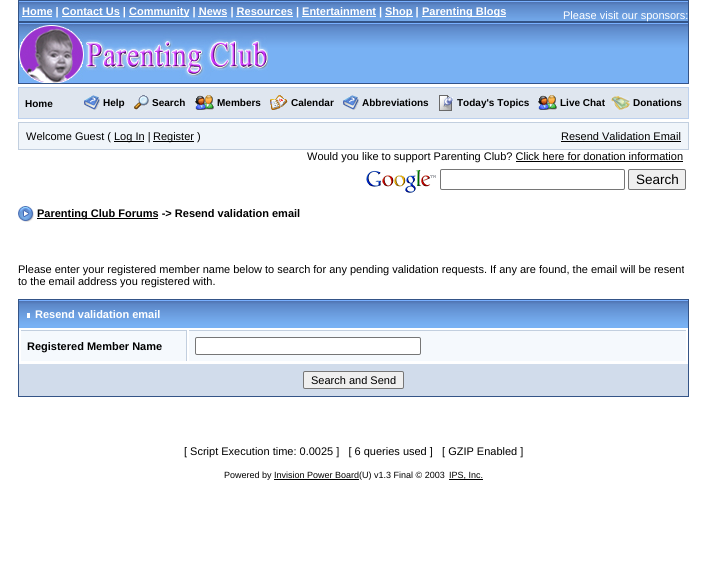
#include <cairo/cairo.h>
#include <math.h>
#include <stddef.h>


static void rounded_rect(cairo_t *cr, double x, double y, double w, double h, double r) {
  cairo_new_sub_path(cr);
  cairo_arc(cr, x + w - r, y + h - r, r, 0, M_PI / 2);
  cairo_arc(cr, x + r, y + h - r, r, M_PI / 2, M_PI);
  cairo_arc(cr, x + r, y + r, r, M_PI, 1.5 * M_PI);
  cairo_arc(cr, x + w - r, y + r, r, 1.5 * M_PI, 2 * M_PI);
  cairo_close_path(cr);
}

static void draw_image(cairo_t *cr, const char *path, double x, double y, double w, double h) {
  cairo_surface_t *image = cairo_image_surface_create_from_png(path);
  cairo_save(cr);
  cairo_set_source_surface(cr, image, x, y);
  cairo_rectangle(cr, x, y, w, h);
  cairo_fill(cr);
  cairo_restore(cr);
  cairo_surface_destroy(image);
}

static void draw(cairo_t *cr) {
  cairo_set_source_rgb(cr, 1, 1, 1);
  cairo_paint(cr);
  draw_image(cr, "images/1.png", 19, 1, 669, 20);
  cairo_rectangle(cr, 18.5, 0.5, 670, 21);
  cairo_set_source_rgb(cr, 52 / 255.0, 84 / 255.0, 135 / 255.0);
  cairo_set_line_width(cr, 1);
  cairo_stroke(cr);
  cairo_set_source_rgb(cr, 1, 1, 1);
  cairo_rectangle(cr, 22, 16, 30, 1);
  cairo_fill(cr);
  cairo_rectangle(cr, 62, 16, 58, 1);
  cairo_fill(cr);
  cairo_rectangle(cr, 129, 16, 60, 1);
  cairo_fill(cr);
  cairo_rectangle(cr, 198, 16, 29, 1);
  cairo_fill(cr);
  cairo_rectangle(cr, 236, 16, 57, 1);
  cairo_fill(cr);
  cairo_rectangle(cr, 302, 16, 74, 1);
  cairo_fill(cr);
  cairo_rectangle(cr, 385, 16, 28, 1);
  cairo_fill(cr);
  cairo_rectangle(cr, 422, 16, 84, 1);
  cairo_fill(cr);
  draw_image(cr, "images/2.png", 19, 23, 669, 60);
  cairo_rectangle(cr, 18.5, 22.5, 670, 61);
  cairo_set_source_rgb(cr, 52 / 255.0, 84 / 255.0, 135 / 255.0);
  cairo_stroke(cr);
  draw_image(cr, "images/3.png", 19, 24, 249, 59);
  cairo_set_source_rgb(cr, 223 / 255.0, 230 / 255.0, 239 / 255.0);
  cairo_rectangle(cr, 18.5, 87.5, 670, 31);
  cairo_fill_preserve(cr);
  cairo_set_source_rgb(cr, 188 / 255.0, 208 / 255.0, 237 / 255.0);
  cairo_stroke(cr);
  draw_image(cr, "images/4.png", 84, 95, 16, 15);
  draw_image(cr, "images/5.png", 134, 95, 15, 15);
  draw_image(cr, "images/6.png", 195, 95, 19, 15);
  draw_image(cr, "images/7.png", 270, 95, 18, 15);
  draw_image(cr, "images/4.png", 343, 95, 16, 15);
  draw_image(cr, "images/8.png", 439, 95, 14, 16);
  draw_image(cr, "images/6.png", 538, 95, 19, 15);
  draw_image(cr, "images/9.png", 611, 96, 19, 14);
  cairo_set_source_rgb(cr, 240 / 255.0, 245 / 255.0, 250 / 255.0);
  cairo_rectangle(cr, 18.5, 122.5, 670, 27);
  cairo_fill_preserve(cr);
  cairo_set_source_rgb(cr, 194 / 255.0, 207 / 255.0, 223 / 255.0);
  cairo_stroke(cr);
  cairo_set_source_rgb(cr, 0, 0, 0);
  cairo_rectangle(cr, 114, 141, 30, 1);
  cairo_fill(cr);
  cairo_rectangle(cr, 153, 141, 41, 1);
  cairo_fill(cr);
  cairo_rectangle(cr, 561, 141, 120, 1);
  cairo_fill(cr);
  cairo_rectangle(cr, 516, 161, 167, 1);
  cairo_fill(cr);
  draw_image(cr, "images/10.png", 366, 170, 70, 23);
  rounded_rect(cr, 440.5, 169.5, 184, 20, 1.5);
  cairo_set_source_rgb(cr, 118 / 255.0, 118 / 255.0, 118 / 255.0);
  cairo_stroke(cr);
  cairo_set_source_rgb(cr, 239 / 255.0, 239 / 255.0, 239 / 255.0);
  rounded_rect(cr, 628.5, 169.5, 57, 20, 1.5);
  cairo_fill_preserve(cr);
  cairo_set_source_rgb(cr, 118 / 255.0, 118 / 255.0, 118 / 255.0);
  cairo_stroke(cr);
  draw_image(cr, "images/11.png", 18, 206, 16, 16);
  cairo_set_source_rgb(cr, 0, 0, 0);
  cairo_rectangle(cr, 37, 218, 121, 1);
  cairo_fill(cr);
  cairo_rectangle(cr, 18.5, 299.5, 670, 97);
  cairo_set_source_rgb(cr, 52 / 255.0, 84 / 255.0, 135 / 255.0);
  cairo_stroke(cr);
  draw_image(cr, "images/12.png", 19, 300, 669, 28);
  cairo_set_source_rgb(cr, 1, 1, 1);
  cairo_rectangle(cr, 27, 313, 3, 5);
  cairo_fill(cr);
  cairo_set_source_rgb(cr, 245 / 255.0, 249 / 255.0, 253 / 255.0);
  cairo_rectangle(cr, 21, 331, 165, 30);
  cairo_fill(cr);
  cairo_set_source_rgb(cr, 194 / 255.0, 207 / 255.0, 223 / 255.0);
  cairo_rectangle(cr, 21, 330, 166, 1);
  cairo_fill(cr);
  cairo_rectangle(cr, 186, 330, 1, 31);
  cairo_fill(cr);
  cairo_set_source_rgb(cr, 245 / 255.0, 249 / 255.0, 253 / 255.0);
  cairo_rectangle(cr, 189, 331, 497, 30);
  cairo_fill(cr);
  cairo_set_source_rgb(cr, 194 / 255.0, 207 / 255.0, 223 / 255.0);
  cairo_rectangle(cr, 189, 330, 497, 1);
  cairo_fill(cr);
  cairo_set_source_rgb(cr, 1, 1, 1);
  rounded_rect(cr, 195.5, 337.5, 225, 17, 1.5);
  cairo_fill_preserve(cr);
  cairo_set_source_rgb(cr, 118 / 255.0, 118 / 255.0, 118 / 255.0);
  cairo_stroke(cr);
  cairo_set_source_rgb(cr, 209 / 255.0, 220 / 255.0, 235 / 255.0);
  cairo_rectangle(cr, 19, 364, 669, 32);
  cairo_fill(cr);
  cairo_set_source_rgb(cr, 239 / 255.0, 239 / 255.0, 239 / 255.0);
  rounded_rect(cr, 303.5, 371.5, 100, 17, 1.5);
  cairo_fill_preserve(cr);
  cairo_set_source_rgb(cr, 118 / 255.0, 118 / 255.0, 118 / 255.0);
  cairo_stroke(cr);
  cairo_set_source_rgb(cr, 0, 0, 0);
  cairo_rectangle(cr, 449, 479, 34, 1);
  cairo_fill(cr);
  cairo_rectangle(cr, 274, 479, 85, 1);
  cairo_fill(cr);
  cairo_select_font_face(cr, "Liberation Sans", CAIRO_FONT_SLANT_NORMAL, CAIRO_FONT_WEIGHT_BOLD);
  cairo_set_font_size(cr, 11);
  cairo_set_source_rgb(cr, 1, 1, 1);
  cairo_move_to(cr, 22, 15);
  cairo_show_text(cr, "Home | Contact Us |");
  cairo_move_to(cr, 129, 15);
  cairo_show_text(cr, "Community | News | Resources | Entertainment |");
  cairo_move_to(cr, 385, 15);
  cairo_show_text(cr, "Shop |");
  cairo_move_to(cr, 422, 15);
  cairo_show_text(cr, "Parenting Blogs");
  cairo_select_font_face(cr, "Liberation Sans", CAIRO_FONT_SLANT_NORMAL, CAIRO_FONT_WEIGHT_NORMAL);
  cairo_move_to(cr, 563, 19);
  cairo_show_text(cr, "Please visit our sponsors:");
  cairo_select_font_face(cr, "Liberation Sans", CAIRO_FONT_SLANT_NORMAL, CAIRO_FONT_WEIGHT_BOLD);
  cairo_set_font_size(cr, 10);
  cairo_set_source_rgb(cr, 0, 0, 0);
  cairo_move_to(cr, 25, 107);
  cairo_show_text(cr, "Home");
  cairo_move_to(cr, 103, 106);
  cairo_show_text(cr, "Help");
  cairo_move_to(cr, 152, 106);
  cairo_show_text(cr, "Search");
  cairo_move_to(cr, 217, 106);
  cairo_show_text(cr, "Members");
  cairo_move_to(cr, 291, 106);
  cairo_show_text(cr, "Calendar");
  cairo_move_to(cr, 362, 106);
  cairo_show_text(cr, "Abbreviations");
  cairo_move_to(cr, 457, 106);
  cairo_show_text(cr, "Today's Topics");
  cairo_move_to(cr, 560, 106);
  cairo_show_text(cr, "Live Chat");
  cairo_move_to(cr, 633, 106);
  cairo_show_text(cr, "Donations");
  cairo_select_font_face(cr, "Liberation Sans", CAIRO_FONT_SLANT_NORMAL, CAIRO_FONT_WEIGHT_NORMAL);
  cairo_set_font_size(cr, 11);
  cairo_move_to(cr, 26, 140);
  cairo_show_text(cr, "Welcome Guest (");
  cairo_move_to(cr, 114, 140);
  cairo_show_text(cr, "Log In |");
  cairo_move_to(cr, 153, 140);
  cairo_show_text(cr, "Register )");
  cairo_move_to(cr, 561, 140);
  cairo_show_text(cr, "Resend Validation Email");
  cairo_move_to(cr, 307, 160);
  cairo_show_text(cr, "Would you like to support Parenting Club? Click here for donation information");
  cairo_set_font_size(cr, 13.5);
  cairo_move_to(cr, 636, 184);
  cairo_show_text(cr, "Search");
  cairo_select_font_face(cr, "Liberation Sans", CAIRO_FONT_SLANT_NORMAL, CAIRO_FONT_WEIGHT_BOLD);
  cairo_set_font_size(cr, 11);
  cairo_move_to(cr, 37, 217);
  cairo_show_text(cr, "Parenting Club Forums -> Resend validation email");
  cairo_select_font_face(cr, "Liberation Sans", CAIRO_FONT_SLANT_NORMAL, CAIRO_FONT_WEIGHT_NORMAL);
  cairo_move_to(cr, 18, 273);
  cairo_show_text(cr, "Please enter your registered member name below to search for any pending validation requests. If any are found, the email will be resent");
  cairo_move_to(cr, 18, 285);
  cairo_show_text(cr, "to the email address you registered with.");
  cairo_select_font_face(cr, "Liberation Sans", CAIRO_FONT_SLANT_NORMAL, CAIRO_FONT_WEIGHT_BOLD);
  cairo_set_source_rgb(cr, 1, 1, 1);
  cairo_move_to(cr, 35, 318);
  cairo_show_text(cr, "Resend validation email");
  cairo_set_source_rgb(cr, 0, 0, 0);
  cairo_move_to(cr, 27, 350);
  cairo_show_text(cr, "Registered Member Name");
  cairo_select_font_face(cr, "Liberation Sans", CAIRO_FONT_SLANT_NORMAL, CAIRO_FONT_WEIGHT_NORMAL);
  cairo_move_to(cr, 311, 384);
  cairo_show_text(cr, "Search and Send");
  cairo_move_to(cr, 184, 455);
  cairo_show_text(cr, "[ Script Execution time: 0.0025 ]   [ 6 queries used ]   [ GZIP Enabled ]");
  cairo_set_font_size(cr, 9);
  cairo_move_to(cr, 224, 478);
  cairo_show_text(cr, "Powered by Invision Power Board(U) v1.3 Final © 2003");
  cairo_move_to(cr, 449, 478);
  cairo_show_text(cr, "IPS, Inc.");
}

int main(void) {
  cairo_surface_t *surface = cairo_image_surface_create(CAIRO_FORMAT_RGB24, 707, 575);
  cairo_t *cr = cairo_create(surface);
  cairo_font_options_t *options = cairo_font_options_create();
  cairo_font_options_set_hint_metrics(options, CAIRO_HINT_METRICS_OFF);
  cairo_font_options_set_hint_style(options, CAIRO_HINT_STYLE_NONE);
  cairo_set_font_options(cr, options);
  cairo_set_miter_limit(cr, 4);
  draw(cr);
  cairo_surface_write_to_png(surface, "out.png");
  cairo_font_options_destroy(options);
  cairo_destroy(cr);
  cairo_surface_destroy(surface);
  return 0;
}
